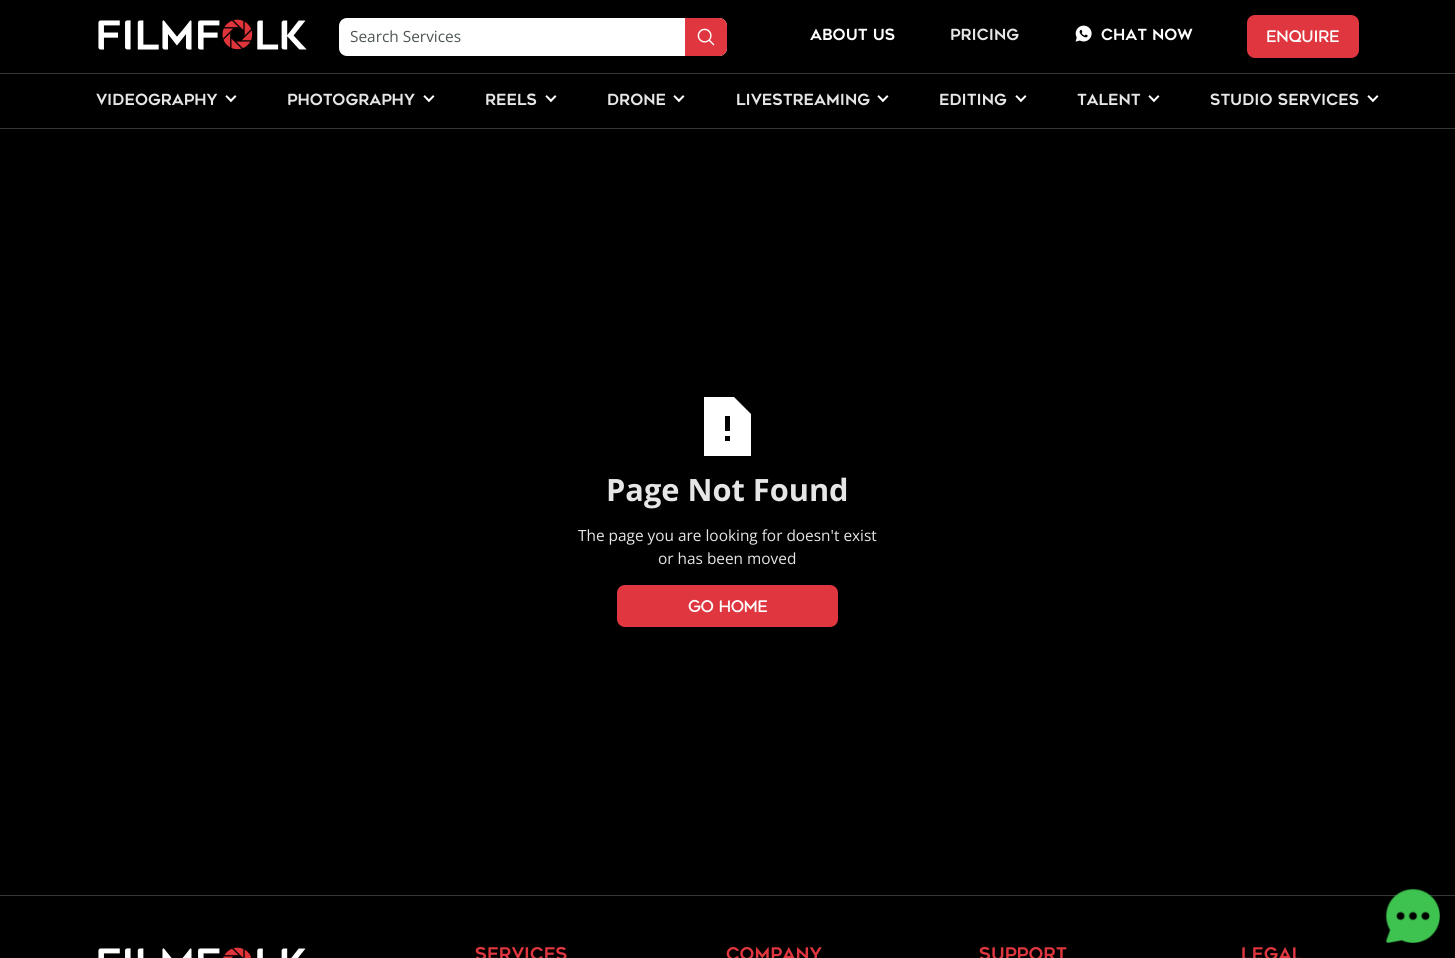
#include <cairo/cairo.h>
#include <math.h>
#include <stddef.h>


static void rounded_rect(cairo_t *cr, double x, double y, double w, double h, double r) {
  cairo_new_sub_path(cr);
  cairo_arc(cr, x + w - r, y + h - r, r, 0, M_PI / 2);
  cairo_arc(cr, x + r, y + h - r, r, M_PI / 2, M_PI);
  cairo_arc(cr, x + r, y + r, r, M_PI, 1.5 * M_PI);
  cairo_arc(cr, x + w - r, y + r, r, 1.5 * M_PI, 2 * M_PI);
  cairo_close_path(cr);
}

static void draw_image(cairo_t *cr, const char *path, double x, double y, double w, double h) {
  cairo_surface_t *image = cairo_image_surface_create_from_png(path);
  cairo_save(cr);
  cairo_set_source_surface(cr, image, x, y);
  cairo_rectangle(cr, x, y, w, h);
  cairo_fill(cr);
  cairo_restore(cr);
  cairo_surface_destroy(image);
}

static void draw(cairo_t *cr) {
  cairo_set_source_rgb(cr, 0, 0, 0);
  cairo_paint(cr);
  draw_image(cr, "images/1.png", 98, 19, 209, 31);
  cairo_set_source_rgb(cr, 1, 1, 1);
  rounded_rect(cr, 339, 18, 388, 38, 8);
  cairo_fill(cr);
  cairo_set_source_rgb(cr, 223 / 255.0, 54 / 255.0, 63 / 255.0);
  cairo_new_path(cr);
  cairo_move_to(cr, 685, 18);
  cairo_line_to(cr, 719, 18);
  cairo_curve_to(cr, 723.5, 18, 727, 21.5, 727, 26);
  cairo_line_to(cr, 727, 48);
  cairo_curve_to(cr, 727, 52.5, 723.5, 56, 719, 56);
  cairo_line_to(cr, 685, 56);
  cairo_close_path(cr);
  cairo_fill(cr);
  draw_image(cr, "images/2.png", 697, 28, 18, 18);
  draw_image(cr, "images/3.png", 1075, 25, 17, 17);
  rounded_rect(cr, 1247, 15, 112, 43, 8);
  cairo_fill(cr);
  cairo_set_source_rgb(cr, 55 / 255.0, 55 / 255.0, 55 / 255.0);
  cairo_rectangle(cr, 0, 73, 1455, 1);
  cairo_fill(cr);
  cairo_rectangle(cr, 0, 128, 1455, 1);
  cairo_fill(cr);
  draw_image(cr, "images/4.png", 225, 95, 12, 8);
  draw_image(cr, "images/4.png", 423, 95, 12, 8);
  draw_image(cr, "images/4.png", 545, 95, 12, 8);
  draw_image(cr, "images/4.png", 673, 95, 12, 8);
  draw_image(cr, "images/4.png", 877, 95, 12, 8);
  draw_image(cr, "images/4.png", 1015, 95, 12, 8);
  draw_image(cr, "images/4.png", 1148, 95, 12, 8);
  draw_image(cr, "images/4.png", 1367, 95, 12, 8);
  cairo_set_source_rgb(cr, 1, 1, 1);
  cairo_set_fill_rule(cr, CAIRO_FILL_RULE_EVEN_ODD);
  cairo_new_path(cr);
  cairo_move_to(cr, 704, 397);
  cairo_line_to(cr, 734, 397);
  cairo_line_to(cr, 751, 414);
  cairo_line_to(cr, 751, 456);
  cairo_line_to(cr, 704, 456);
  cairo_close_path(cr);
  cairo_move_to(cr, 725, 416);
  cairo_line_to(cr, 730, 416);
  cairo_line_to(cr, 730, 431);
  cairo_line_to(cr, 725, 431);
  cairo_close_path(cr);
  cairo_move_to(cr, 725, 436);
  cairo_line_to(cr, 730, 436);
  cairo_line_to(cr, 730, 441);
  cairo_line_to(cr, 725, 441);
  cairo_close_path(cr);
  cairo_fill(cr);
  cairo_set_source_rgb(cr, 223 / 255.0, 54 / 255.0, 63 / 255.0);
  rounded_rect(cr, 617, 585, 221, 42, 8);
  cairo_fill(cr);
  cairo_set_source_rgb(cr, 55 / 255.0, 55 / 255.0, 55 / 255.0);
  cairo_rectangle(cr, 0, 895, 1455, 1);
  cairo_fill(cr);
  draw_image(cr, "images/5.png", 1385, 888, 55, 55);
  draw_image(cr, "images/6.png", 98, 947, 208, 11);
  cairo_select_font_face(cr, "Open Sans", CAIRO_FONT_SLANT_NORMAL, CAIRO_FONT_WEIGHT_NORMAL);
  cairo_set_font_size(cr, 15.4);
  cairo_set_source_rgb(cr, 78 / 255.0, 86 / 255.0, 86 / 255.0);
  cairo_move_to(cr, 350, 42);
  cairo_show_text(cr, "Search Services");
  cairo_select_font_face(cr, "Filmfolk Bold", CAIRO_FONT_SLANT_NORMAL, CAIRO_FONT_WEIGHT_BOLD);
  cairo_set_source_rgb(cr, 1, 1, 1);
  cairo_move_to(cr, 810, 40);
  cairo_show_text(cr, "ABOUT US");
  cairo_set_source_rgb(cr, 230 / 255.0, 230 / 255.0, 230 / 255.0);
  cairo_move_to(cr, 950, 40);
  cairo_show_text(cr, "Pricing");
  cairo_set_source_rgb(cr, 1, 1, 1);
  cairo_move_to(cr, 1101, 40);
  cairo_show_text(cr, "CHAT NOW");
  cairo_select_font_face(cr, "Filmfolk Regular", CAIRO_FONT_SLANT_NORMAL, CAIRO_FONT_WEIGHT_BOLD);
  cairo_move_to(cr, 1266, 42);
  cairo_show_text(cr, "ENQUIRE");
  cairo_select_font_face(cr, "Filmfolk Bold", CAIRO_FONT_SLANT_NORMAL, CAIRO_FONT_WEIGHT_BOLD);
  cairo_set_source_rgb(cr, 230 / 255.0, 230 / 255.0, 230 / 255.0);
  cairo_move_to(cr, 96, 105);
  cairo_show_text(cr, "VIDEOGRAPHY");
  cairo_move_to(cr, 287, 105);
  cairo_show_text(cr, "PHOTOGRAPHY");
  cairo_move_to(cr, 485, 105);
  cairo_show_text(cr, "REELS");
  cairo_move_to(cr, 607, 105);
  cairo_show_text(cr, "DRONE");
  cairo_move_to(cr, 736, 105);
  cairo_show_text(cr, "LIVESTREAMING");
  cairo_move_to(cr, 939, 105);
  cairo_show_text(cr, "EDITING");
  cairo_move_to(cr, 1077, 105);
  cairo_show_text(cr, "TALENT");
  cairo_move_to(cr, 1210, 105);
  cairo_show_text(cr, "STUDIO SERVICES");
  cairo_select_font_face(cr, "Open Sans", CAIRO_FONT_SLANT_NORMAL, CAIRO_FONT_WEIGHT_BOLD);
  cairo_set_font_size(cr, 30.75);
  cairo_move_to(cr, 606, 501);
  cairo_show_text(cr, "Page Not Found");
  cairo_select_font_face(cr, "Open Sans", CAIRO_FONT_SLANT_NORMAL, CAIRO_FONT_WEIGHT_NORMAL);
  cairo_set_font_size(cr, 15.4);
  cairo_move_to(cr, 578, 541);
  cairo_show_text(cr, "The page you are looking for doesn't exist");
  cairo_move_to(cr, 658, 564);
  cairo_show_text(cr, "or has been moved");
  cairo_select_font_face(cr, "Filmfolk Regular", CAIRO_FONT_SLANT_NORMAL, CAIRO_FONT_WEIGHT_BOLD);
  cairo_set_source_rgb(cr, 1, 1, 1);
  cairo_move_to(cr, 688, 612);
  cairo_show_text(cr, "Go Home");
  cairo_select_font_face(cr, "Filmfolk Bold", CAIRO_FONT_SLANT_NORMAL, CAIRO_FONT_WEIGHT_BOLD);
  cairo_set_font_size(cr, 17.5);
  cairo_set_source_rgb(cr, 223 / 255.0, 54 / 255.0, 63 / 255.0);
  cairo_move_to(cr, 475, 960);
  cairo_show_text(cr, "services");
  cairo_move_to(cr, 726, 960);
  cairo_show_text(cr, "company");
  cairo_move_to(cr, 979, 960);
  cairo_show_text(cr, "support");
  cairo_move_to(cr, 1241, 960);
  cairo_show_text(cr, "legal");
}

int main(void) {
  cairo_surface_t *surface = cairo_image_surface_create(CAIRO_FORMAT_RGB24, 1455, 958);
  cairo_t *cr = cairo_create(surface);
  cairo_font_options_t *options = cairo_font_options_create();
  cairo_font_options_set_hint_metrics(options, CAIRO_HINT_METRICS_OFF);
  cairo_font_options_set_hint_style(options, CAIRO_HINT_STYLE_NONE);
  cairo_set_font_options(cr, options);
  cairo_set_miter_limit(cr, 4);
  draw(cr);
  cairo_surface_write_to_png(surface, "out.png");
  cairo_font_options_destroy(options);
  cairo_destroy(cr);
  cairo_surface_destroy(surface);
  return 0;
}
